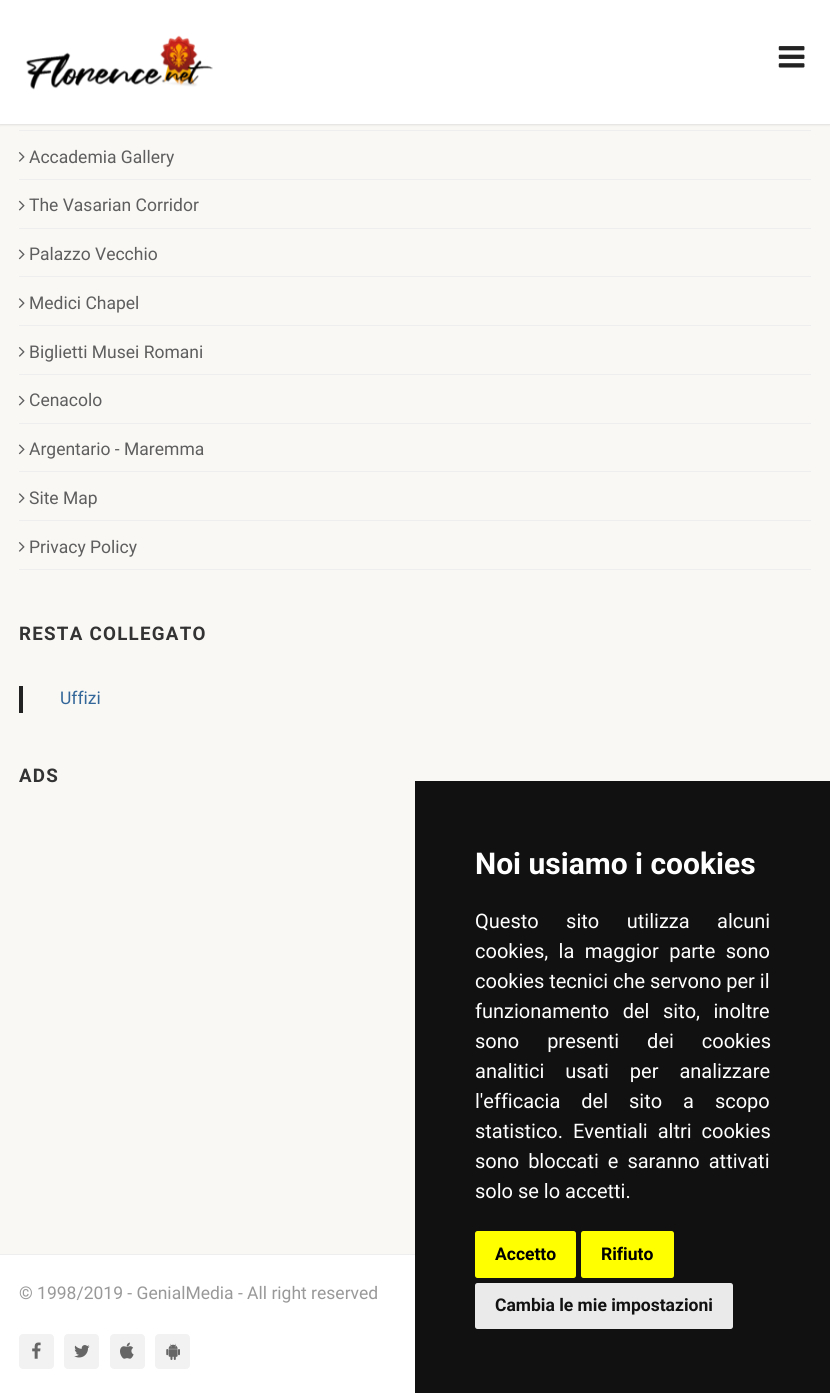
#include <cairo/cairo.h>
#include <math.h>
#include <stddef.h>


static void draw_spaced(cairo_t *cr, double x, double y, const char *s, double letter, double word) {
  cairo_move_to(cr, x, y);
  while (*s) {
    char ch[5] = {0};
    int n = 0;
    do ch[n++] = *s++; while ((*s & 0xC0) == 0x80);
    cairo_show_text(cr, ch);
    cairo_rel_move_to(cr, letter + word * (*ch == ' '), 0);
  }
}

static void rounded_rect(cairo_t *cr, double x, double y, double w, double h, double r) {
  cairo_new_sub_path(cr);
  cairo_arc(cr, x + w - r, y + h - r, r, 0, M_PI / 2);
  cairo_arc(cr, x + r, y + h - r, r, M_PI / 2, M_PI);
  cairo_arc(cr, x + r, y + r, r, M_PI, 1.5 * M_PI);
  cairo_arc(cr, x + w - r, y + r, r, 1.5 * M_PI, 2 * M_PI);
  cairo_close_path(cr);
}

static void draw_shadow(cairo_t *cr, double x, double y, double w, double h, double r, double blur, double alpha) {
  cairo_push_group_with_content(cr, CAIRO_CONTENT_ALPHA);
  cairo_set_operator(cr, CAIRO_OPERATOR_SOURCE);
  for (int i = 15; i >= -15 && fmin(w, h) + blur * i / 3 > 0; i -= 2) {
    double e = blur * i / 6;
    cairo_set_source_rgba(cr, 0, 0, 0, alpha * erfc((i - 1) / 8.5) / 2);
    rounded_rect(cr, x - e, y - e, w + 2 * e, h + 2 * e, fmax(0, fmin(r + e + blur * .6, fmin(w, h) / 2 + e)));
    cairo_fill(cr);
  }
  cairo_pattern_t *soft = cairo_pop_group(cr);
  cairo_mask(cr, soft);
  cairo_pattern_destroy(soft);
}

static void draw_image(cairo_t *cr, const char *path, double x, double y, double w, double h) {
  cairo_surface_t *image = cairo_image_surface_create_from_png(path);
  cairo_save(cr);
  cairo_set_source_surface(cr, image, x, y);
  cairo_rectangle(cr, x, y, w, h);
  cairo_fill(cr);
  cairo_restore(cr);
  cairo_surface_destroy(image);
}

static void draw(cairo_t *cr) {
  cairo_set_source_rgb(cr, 1, 1, 1);
  cairo_paint(cr);
  cairo_set_source_rgb(cr, 249 / 255.0, 248 / 255.0, 245 / 255.0);
  cairo_rectangle(cr, 0, 124, 830, 1130);
  cairo_fill(cr);
  cairo_set_source_rgb(cr, 0, 0, 0);
  draw_shadow(cr, 0, 1, 830, 124, 0, 1, 0.1);
  cairo_set_source_rgb(cr, 1, 1, 1);
  cairo_rectangle(cr, 0, 0, 830, 124);
  cairo_fill(cr);
  draw_image(cr, "images/1.png", 26, 35, 187, 55);
  draw_image(cr, "images/2.png", 778, 46, 27, 22);
  cairo_set_source_rgb(cr, 238 / 255.0, 238 / 255.0, 238 / 255.0);
  cairo_rectangle(cr, 19, 130, 792, 1);
  cairo_fill(cr);
  cairo_rectangle(cr, 19, 179, 792, 1);
  cairo_fill(cr);
  draw_image(cr, "images/3.png", 18, 152, 7, 10);
  cairo_rectangle(cr, 19, 228, 792, 1);
  cairo_fill(cr);
  draw_image(cr, "images/4.png", 18, 200, 7, 11);
  cairo_rectangle(cr, 19, 276, 792, 1);
  cairo_fill(cr);
  draw_image(cr, "images/5.png", 18, 249, 7, 11);
  cairo_rectangle(cr, 19, 325, 792, 1);
  cairo_fill(cr);
  draw_image(cr, "images/6.png", 18, 298, 7, 10);
  cairo_rectangle(cr, 19, 374, 792, 1);
  cairo_fill(cr);
  draw_image(cr, "images/3.png", 18, 347, 7, 10);
  cairo_rectangle(cr, 19, 423, 792, 1);
  cairo_fill(cr);
  draw_image(cr, "images/4.png", 18, 395, 7, 11);
  cairo_rectangle(cr, 19, 471, 792, 1);
  cairo_fill(cr);
  draw_image(cr, "images/5.png", 18, 444, 7, 11);
  cairo_rectangle(cr, 19, 520, 792, 1);
  cairo_fill(cr);
  draw_image(cr, "images/6.png", 18, 493, 7, 10);
  cairo_rectangle(cr, 19, 569, 792, 1);
  cairo_fill(cr);
  draw_image(cr, "images/3.png", 18, 542, 7, 10);
  cairo_set_source_rgb(cr, 34 / 255.0, 34 / 255.0, 34 / 255.0);
  cairo_rectangle(cr, 19, 686, 4, 27);
  cairo_fill(cr);
  cairo_set_source_rgb(cr, 238 / 255.0, 238 / 255.0, 238 / 255.0);
  cairo_rectangle(cr, 0, 1254, 415, 1);
  cairo_fill(cr);
  cairo_set_source_rgb(cr, 242 / 255.0, 242 / 255.0, 242 / 255.0);
  rounded_rect(cr, 19, 1334, 35, 35, 4);
  cairo_fill(cr);
  draw_image(cr, "images/7.png", 32, 1342, 9, 17);
  rounded_rect(cr, 64, 1334, 35, 35, 4);
  cairo_fill(cr);
  draw_image(cr, "images/8.png", 74, 1345, 16, 13);
  rounded_rect(cr, 110, 1334, 35, 35, 4);
  cairo_fill(cr);
  draw_image(cr, "images/9.png", 120, 1342, 14, 17);
  rounded_rect(cr, 155, 1334, 35, 35, 4);
  cairo_fill(cr);
  draw_image(cr, "images/10.png", 166, 1343, 14, 17);
  cairo_set_source_rgb(cr, 17 / 255.0, 17 / 255.0, 17 / 255.0);
  cairo_rectangle(cr, 415, 781, 415, 612);
  cairo_fill(cr);
  cairo_set_source_rgb(cr, 1, 1, 0);
  rounded_rect(cr, 475, 1231, 101, 47, 2.5);
  cairo_fill(cr);
  rounded_rect(cr, 581, 1231, 93, 47, 2.5);
  cairo_fill(cr);
  cairo_set_source_rgb(cr, 234 / 255.0, 234 / 255.0, 234 / 255.0);
  rounded_rect(cr, 475, 1283, 258, 46, 2.5);
  cairo_fill(cr);
  cairo_select_font_face(cr, "Roboto", CAIRO_FONT_SLANT_NORMAL, CAIRO_FONT_WEIGHT_NORMAL);
  cairo_set_font_size(cr, 17.5);
  cairo_set_source_rgb(cr, 94 / 255.0, 94 / 255.0, 94 / 255.0);
  cairo_move_to(cr, 29, 163);
  cairo_show_text(cr, "Accademia Gallery");
  cairo_move_to(cr, 29, 211);
  cairo_show_text(cr, "The Vasarian Corridor");
  cairo_move_to(cr, 29, 260);
  cairo_show_text(cr, "Palazzo Vecchio");
  cairo_move_to(cr, 29, 309);
  cairo_show_text(cr, "Medici Chapel");
  cairo_move_to(cr, 29, 358);
  cairo_show_text(cr, "Biglietti Musei Romani");
  cairo_move_to(cr, 29, 406);
  cairo_show_text(cr, "Cenacolo");
  cairo_move_to(cr, 29, 455);
  cairo_show_text(cr, "Argentario - Maremma");
  cairo_move_to(cr, 29, 504);
  cairo_show_text(cr, "Site Map");
  cairo_move_to(cr, 29, 553);
  cairo_show_text(cr, "Privacy Policy");
  cairo_select_font_face(cr, "Roboto", CAIRO_FONT_SLANT_NORMAL, CAIRO_FONT_WEIGHT_BOLD);
  cairo_set_font_size(cr, 18.75);
  cairo_set_source_rgb(cr, 51 / 255.0, 51 / 255.0, 51 / 255.0);
  draw_spaced(cr, 19, 640, "RESTA COLLEGATO", 1.25, 0);
  cairo_select_font_face(cr, "Roboto", CAIRO_FONT_SLANT_NORMAL, CAIRO_FONT_WEIGHT_NORMAL);
  cairo_set_font_size(cr, 17.5);
  cairo_set_source_rgb(cr, 51 / 255.0, 102 / 255.0, 153 / 255.0);
  cairo_move_to(cr, 60, 704);
  cairo_show_text(cr, "Uffizi");
  cairo_select_font_face(cr, "Roboto", CAIRO_FONT_SLANT_NORMAL, CAIRO_FONT_WEIGHT_BOLD);
  cairo_set_font_size(cr, 18.75);
  cairo_set_source_rgb(cr, 51 / 255.0, 51 / 255.0, 51 / 255.0);
  draw_spaced(cr, 19, 782, "ADS", 1.25, 0);
  cairo_select_font_face(cr, "Roboto", CAIRO_FONT_SLANT_NORMAL, CAIRO_FONT_WEIGHT_NORMAL);
  cairo_set_font_size(cr, 17.5);
  cairo_set_source_rgb(cr, 153 / 255.0, 153 / 255.0, 153 / 255.0);
  cairo_move_to(cr, 19, 1299);
  cairo_show_text(cr, "© 1998/2019 - GenialMedia - All right reserved");
  cairo_select_font_face(cr, "Roboto", CAIRO_FONT_SLANT_NORMAL, CAIRO_FONT_WEIGHT_BOLD);
  cairo_set_font_size(cr, 30);
  cairo_set_source_rgb(cr, 1, 1, 1);
  cairo_move_to(cr, 475, 874);
  cairo_show_text(cr, "Noi usiamo i cookies");
  cairo_select_font_face(cr, "Roboto", CAIRO_FONT_SLANT_NORMAL, CAIRO_FONT_WEIGHT_NORMAL);
  cairo_set_font_size(cr, 20);
  draw_spaced(cr, 475, 928, "Questo sito utilizza alcuni", 0, 22.5);
  draw_spaced(cr, 475, 958, "cookies, la maggior parte sono", 0, 5.5);
  cairo_move_to(cr, 475, 988);
  cairo_show_text(cr, "cookies tecnici che servono per il");
  draw_spaced(cr, 475, 1018, "funzionamento del sito, inoltre", 0, 8.5);
  draw_spaced(cr, 475, 1048, "sono presenti dei cookies", 0, 23);
  draw_spaced(cr, 475, 1078, "analitici usati per analizzare", 0, 16);
  draw_spaced(cr, 475, 1108, "l'efficacia del sito a scopo", 0, 16);
  draw_spaced(cr, 475, 1138, "statistico. Eventiali altri cookies", 0, 5);
  draw_spaced(cr, 475, 1168, "sono bloccati e saranno attivati", 0, 4);
  cairo_move_to(cr, 475, 1198);
  cairo_show_text(cr, "solo se lo accetti.");
  cairo_select_font_face(cr, "Roboto", CAIRO_FONT_SLANT_NORMAL, CAIRO_FONT_WEIGHT_BOLD);
  cairo_set_font_size(cr, 17.5);
  cairo_set_source_rgb(cr, 0, 0, 0);
  cairo_move_to(cr, 495, 1260);
  cairo_show_text(cr, "Accetto");
  cairo_move_to(cr, 601, 1260);
  cairo_show_text(cr, "Rifiuto");
  cairo_set_source_rgb(cr, 17 / 255.0, 17 / 255.0, 17 / 255.0);
  cairo_move_to(cr, 495, 1311);
  cairo_show_text(cr, "Cambia le mie impostazioni");
}

int main(void) {
  cairo_surface_t *surface = cairo_image_surface_create(CAIRO_FORMAT_RGB24, 830, 1393);
  cairo_t *cr = cairo_create(surface);
  cairo_font_options_t *options = cairo_font_options_create();
  cairo_font_options_set_hint_metrics(options, CAIRO_HINT_METRICS_OFF);
  cairo_font_options_set_hint_style(options, CAIRO_HINT_STYLE_NONE);
  cairo_set_font_options(cr, options);
  cairo_set_miter_limit(cr, 4);
  draw(cr);
  cairo_surface_write_to_png(surface, "out.png");
  cairo_font_options_destroy(options);
  cairo_destroy(cr);
  cairo_surface_destroy(surface);
  return 0;
}
